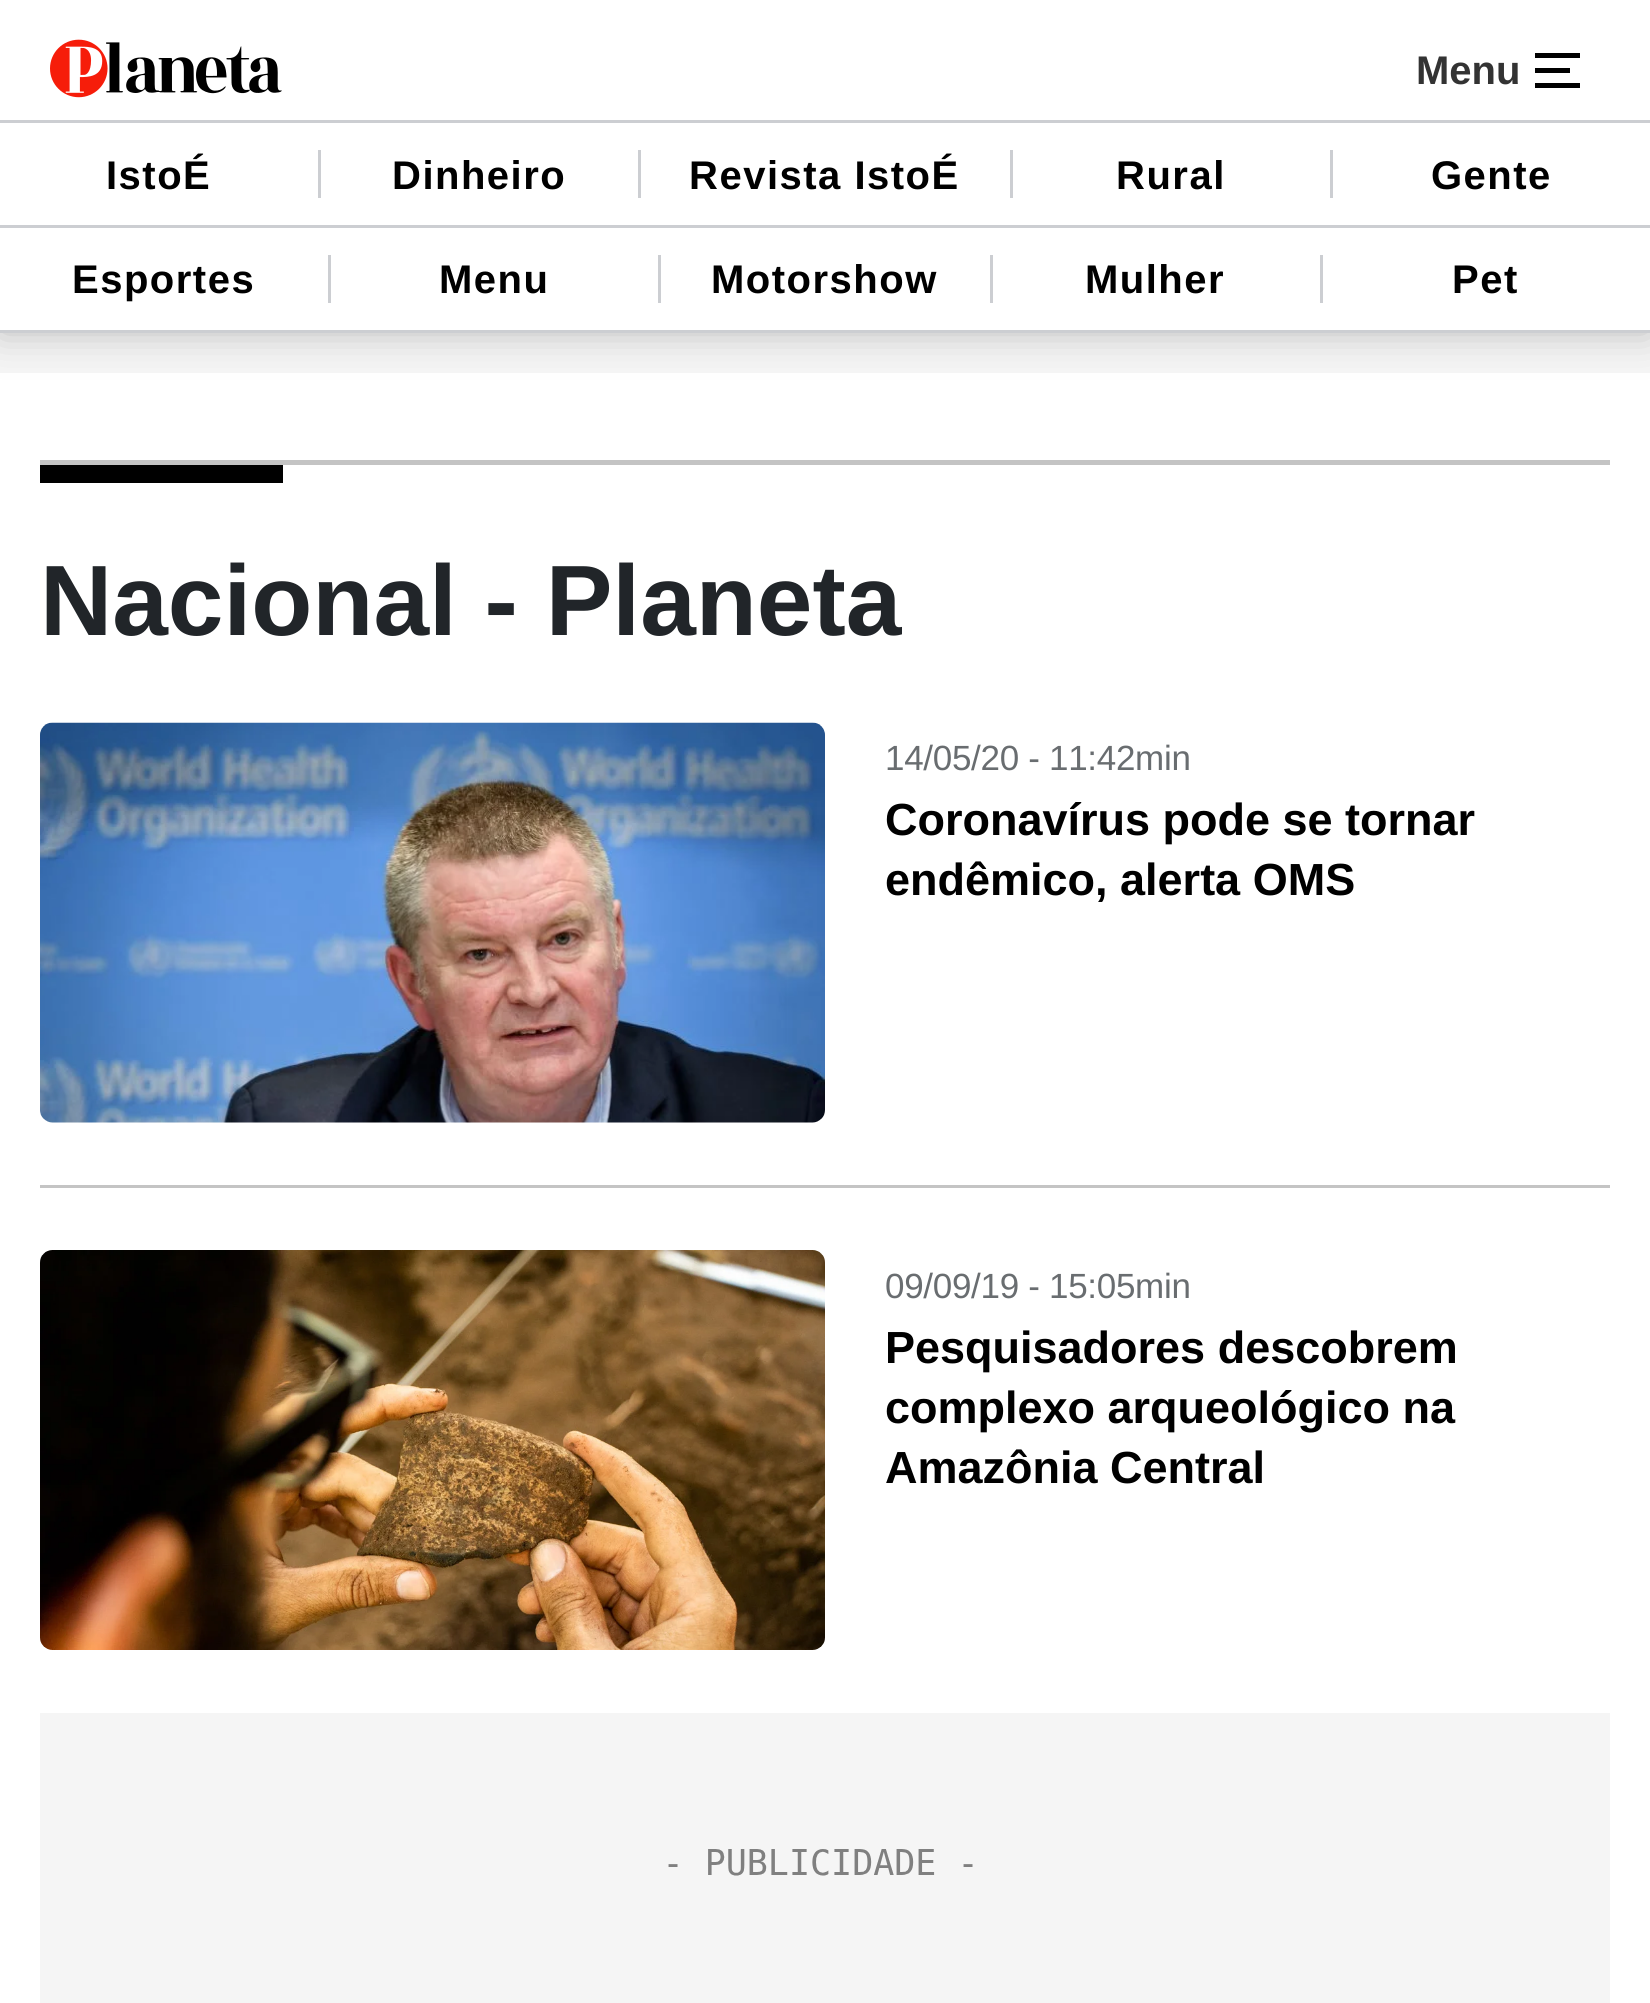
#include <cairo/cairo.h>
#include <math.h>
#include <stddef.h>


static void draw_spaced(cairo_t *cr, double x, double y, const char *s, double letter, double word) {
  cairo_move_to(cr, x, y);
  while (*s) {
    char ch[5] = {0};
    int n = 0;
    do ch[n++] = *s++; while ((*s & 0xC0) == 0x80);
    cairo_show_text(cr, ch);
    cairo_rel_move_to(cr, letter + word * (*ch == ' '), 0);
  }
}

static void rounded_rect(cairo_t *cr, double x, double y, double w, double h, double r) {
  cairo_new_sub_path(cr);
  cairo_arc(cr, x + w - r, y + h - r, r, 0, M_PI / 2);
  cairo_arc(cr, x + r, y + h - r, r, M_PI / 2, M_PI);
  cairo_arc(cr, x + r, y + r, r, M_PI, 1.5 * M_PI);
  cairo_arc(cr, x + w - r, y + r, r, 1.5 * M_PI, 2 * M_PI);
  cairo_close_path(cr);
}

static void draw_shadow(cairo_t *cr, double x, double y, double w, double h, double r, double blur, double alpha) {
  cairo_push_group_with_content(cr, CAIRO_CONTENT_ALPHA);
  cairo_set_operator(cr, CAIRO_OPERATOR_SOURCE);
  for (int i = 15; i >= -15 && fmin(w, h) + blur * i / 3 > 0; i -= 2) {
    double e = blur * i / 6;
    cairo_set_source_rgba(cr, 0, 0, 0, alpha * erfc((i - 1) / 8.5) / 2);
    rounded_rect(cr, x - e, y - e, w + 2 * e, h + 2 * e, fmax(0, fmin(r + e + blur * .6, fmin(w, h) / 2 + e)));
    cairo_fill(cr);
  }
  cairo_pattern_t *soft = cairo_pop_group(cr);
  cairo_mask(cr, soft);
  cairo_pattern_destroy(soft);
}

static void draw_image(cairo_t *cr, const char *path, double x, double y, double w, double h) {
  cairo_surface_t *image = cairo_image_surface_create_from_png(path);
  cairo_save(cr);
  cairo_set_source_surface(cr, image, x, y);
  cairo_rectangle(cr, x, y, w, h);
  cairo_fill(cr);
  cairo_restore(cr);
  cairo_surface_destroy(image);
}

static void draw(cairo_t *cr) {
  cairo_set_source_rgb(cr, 1, 1, 1);
  cairo_paint(cr);
  cairo_set_source_rgb(cr, 245 / 255.0, 245 / 255.0, 245 / 255.0);
  cairo_rectangle(cr, 0, 333, 1650, 40);
  cairo_fill(cr);
  cairo_set_source_rgb(cr, 188 / 255.0, 188 / 255.0, 188 / 255.0);
  draw_shadow(cr, 0, 0, 1650, 333, 0, 19, 1);
  cairo_set_source_rgb(cr, 1, 1, 1);
  cairo_rectangle(cr, 0, 0, 1650, 330);
  cairo_fill(cr);
  draw_image(cr, "images/1.png", 50, 39, 232, 59);
  cairo_set_source_rgb(cr, 0, 0, 0);
  cairo_rectangle(cr, 1535, 53, 45, 5);
  cairo_fill(cr);
  cairo_rectangle(cr, 1535, 83, 45, 5);
  cairo_fill(cr);
  cairo_rectangle(cr, 1535, 68, 35, 5);
  cairo_fill(cr);
  cairo_set_source_rgb(cr, 204 / 255.0, 206 / 255.0, 210 / 255.0);
  cairo_rectangle(cr, 0, 120, 1650, 3);
  cairo_fill(cr);
  cairo_rectangle(cr, 0, 225, 1650, 3);
  cairo_fill(cr);
  cairo_rectangle(cr, 318, 150, 3, 48);
  cairo_fill(cr);
  cairo_rectangle(cr, 638, 150, 3, 48);
  cairo_fill(cr);
  cairo_rectangle(cr, 1010, 150, 3, 48);
  cairo_fill(cr);
  cairo_rectangle(cr, 1330, 150, 3, 48);
  cairo_fill(cr);
  cairo_rectangle(cr, 0, 330, 1650, 3);
  cairo_fill(cr);
  cairo_rectangle(cr, 328, 255, 3, 48);
  cairo_fill(cr);
  cairo_rectangle(cr, 658, 255, 3, 48);
  cairo_fill(cr);
  cairo_rectangle(cr, 990, 255, 3, 48);
  cairo_fill(cr);
  cairo_rectangle(cr, 1320, 255, 3, 48);
  cairo_fill(cr);
  cairo_set_source_rgb(cr, 196 / 255.0, 196 / 255.0, 196 / 255.0);
  cairo_rectangle(cr, 40, 460, 1570, 5);
  cairo_fill(cr);
  cairo_set_source_rgb(cr, 0, 0, 0);
  cairo_rectangle(cr, 40, 465, 243, 18);
  cairo_fill(cr);
  cairo_set_source_rgb(cr, 196 / 255.0, 196 / 255.0, 196 / 255.0);
  cairo_rectangle(cr, 40, 1185, 1570, 3);
  cairo_fill(cr);
  draw_image(cr, "images/2.png", 40, 722, 785, 401);
  draw_image(cr, "images/3.png", 40, 1250, 785, 400);
  cairo_set_source_rgb(cr, 245 / 255.0, 245 / 255.0, 245 / 255.0);
  cairo_rectangle(cr, 40, 1713, 1570, 290);
  cairo_fill(cr);
  draw_image(cr, "images/4.png", 668, 1849, 305, 27);
  cairo_select_font_face(cr, "Liberation Sans", CAIRO_FONT_SLANT_NORMAL, CAIRO_FONT_WEIGHT_BOLD);
  cairo_set_font_size(cr, 40);
  cairo_set_source_rgb(cr, 51 / 255.0, 51 / 255.0, 51 / 255.0);
  cairo_move_to(cr, 1416, 84);
  cairo_show_text(cr, "Menu");
  cairo_set_source_rgb(cr, 0, 0, 0);
  draw_spaced(cr, 106, 189, "IstoÉ", 1.5, 0);
  draw_spaced(cr, 392, 189, "Dinheiro", 1.5, 0);
  draw_spaced(cr, 689, 189, "Revista IstoÉ", 1.5, 0);
  draw_spaced(cr, 1116, 189, "Rural", 1.5, 0);
  draw_spaced(cr, 1431, 189, "Gente", 1.5, 0);
  draw_spaced(cr, 72, 293, "Esportes", 1.5, 0);
  draw_spaced(cr, 439, 293, "Menu", 1.5, 0);
  draw_spaced(cr, 711, 293, "Motorshow", 1.5, 0);
  draw_spaced(cr, 1085, 293, "Mulher", 1.5, 0);
  draw_spaced(cr, 1452, 293, "Pet", 1.5, 0);
  cairo_set_font_size(cr, 100);
  cairo_set_source_rgb(cr, 33 / 255.0, 37 / 255.0, 41 / 255.0);
  cairo_move_to(cr, 40, 635);
  cairo_show_text(cr, "Nacional - Planeta");
  cairo_select_font_face(cr, "Liberation Sans", CAIRO_FONT_SLANT_NORMAL, CAIRO_FONT_WEIGHT_NORMAL);
  cairo_set_font_size(cr, 35);
  cairo_set_source_rgb(cr, 105 / 255.0, 109 / 255.0, 112 / 255.0);
  draw_spaced(cr, 885, 770, "14/05/20 - 11:42min", -0.3, 0);
  cairo_select_font_face(cr, "Liberation Sans", CAIRO_FONT_SLANT_NORMAL, CAIRO_FONT_WEIGHT_BOLD);
  cairo_set_font_size(cr, 45);
  cairo_set_source_rgb(cr, 0, 0, 0);
  cairo_move_to(cr, 885, 835);
  cairo_show_text(cr, "Coronavírus pode se tornar");
  cairo_move_to(cr, 885, 895);
  cairo_show_text(cr, "endêmico, alerta OMS");
  cairo_select_font_face(cr, "Liberation Sans", CAIRO_FONT_SLANT_NORMAL, CAIRO_FONT_WEIGHT_NORMAL);
  cairo_set_font_size(cr, 35);
  cairo_set_source_rgb(cr, 105 / 255.0, 109 / 255.0, 112 / 255.0);
  draw_spaced(cr, 885, 1298, "09/09/19 - 15:05min", -0.3, 0);
  cairo_select_font_face(cr, "Liberation Sans", CAIRO_FONT_SLANT_NORMAL, CAIRO_FONT_WEIGHT_BOLD);
  cairo_set_font_size(cr, 45);
  cairo_set_source_rgb(cr, 0, 0, 0);
  cairo_move_to(cr, 885, 1363);
  cairo_show_text(cr, "Pesquisadores descobrem");
  cairo_move_to(cr, 885, 1423);
  cairo_show_text(cr, "complexo arqueológico na");
  cairo_move_to(cr, 885, 1483);
  cairo_show_text(cr, "Amazônia Central");
}

int main(void) {
  cairo_surface_t *surface = cairo_image_surface_create(CAIRO_FORMAT_RGB24, 1650, 2003);
  cairo_t *cr = cairo_create(surface);
  cairo_font_options_t *options = cairo_font_options_create();
  cairo_font_options_set_hint_metrics(options, CAIRO_HINT_METRICS_OFF);
  cairo_font_options_set_hint_style(options, CAIRO_HINT_STYLE_NONE);
  cairo_set_font_options(cr, options);
  cairo_set_miter_limit(cr, 4);
  draw(cr);
  cairo_surface_write_to_png(surface, "out.png");
  cairo_font_options_destroy(options);
  cairo_destroy(cr);
  cairo_surface_destroy(surface);
  return 0;
}
